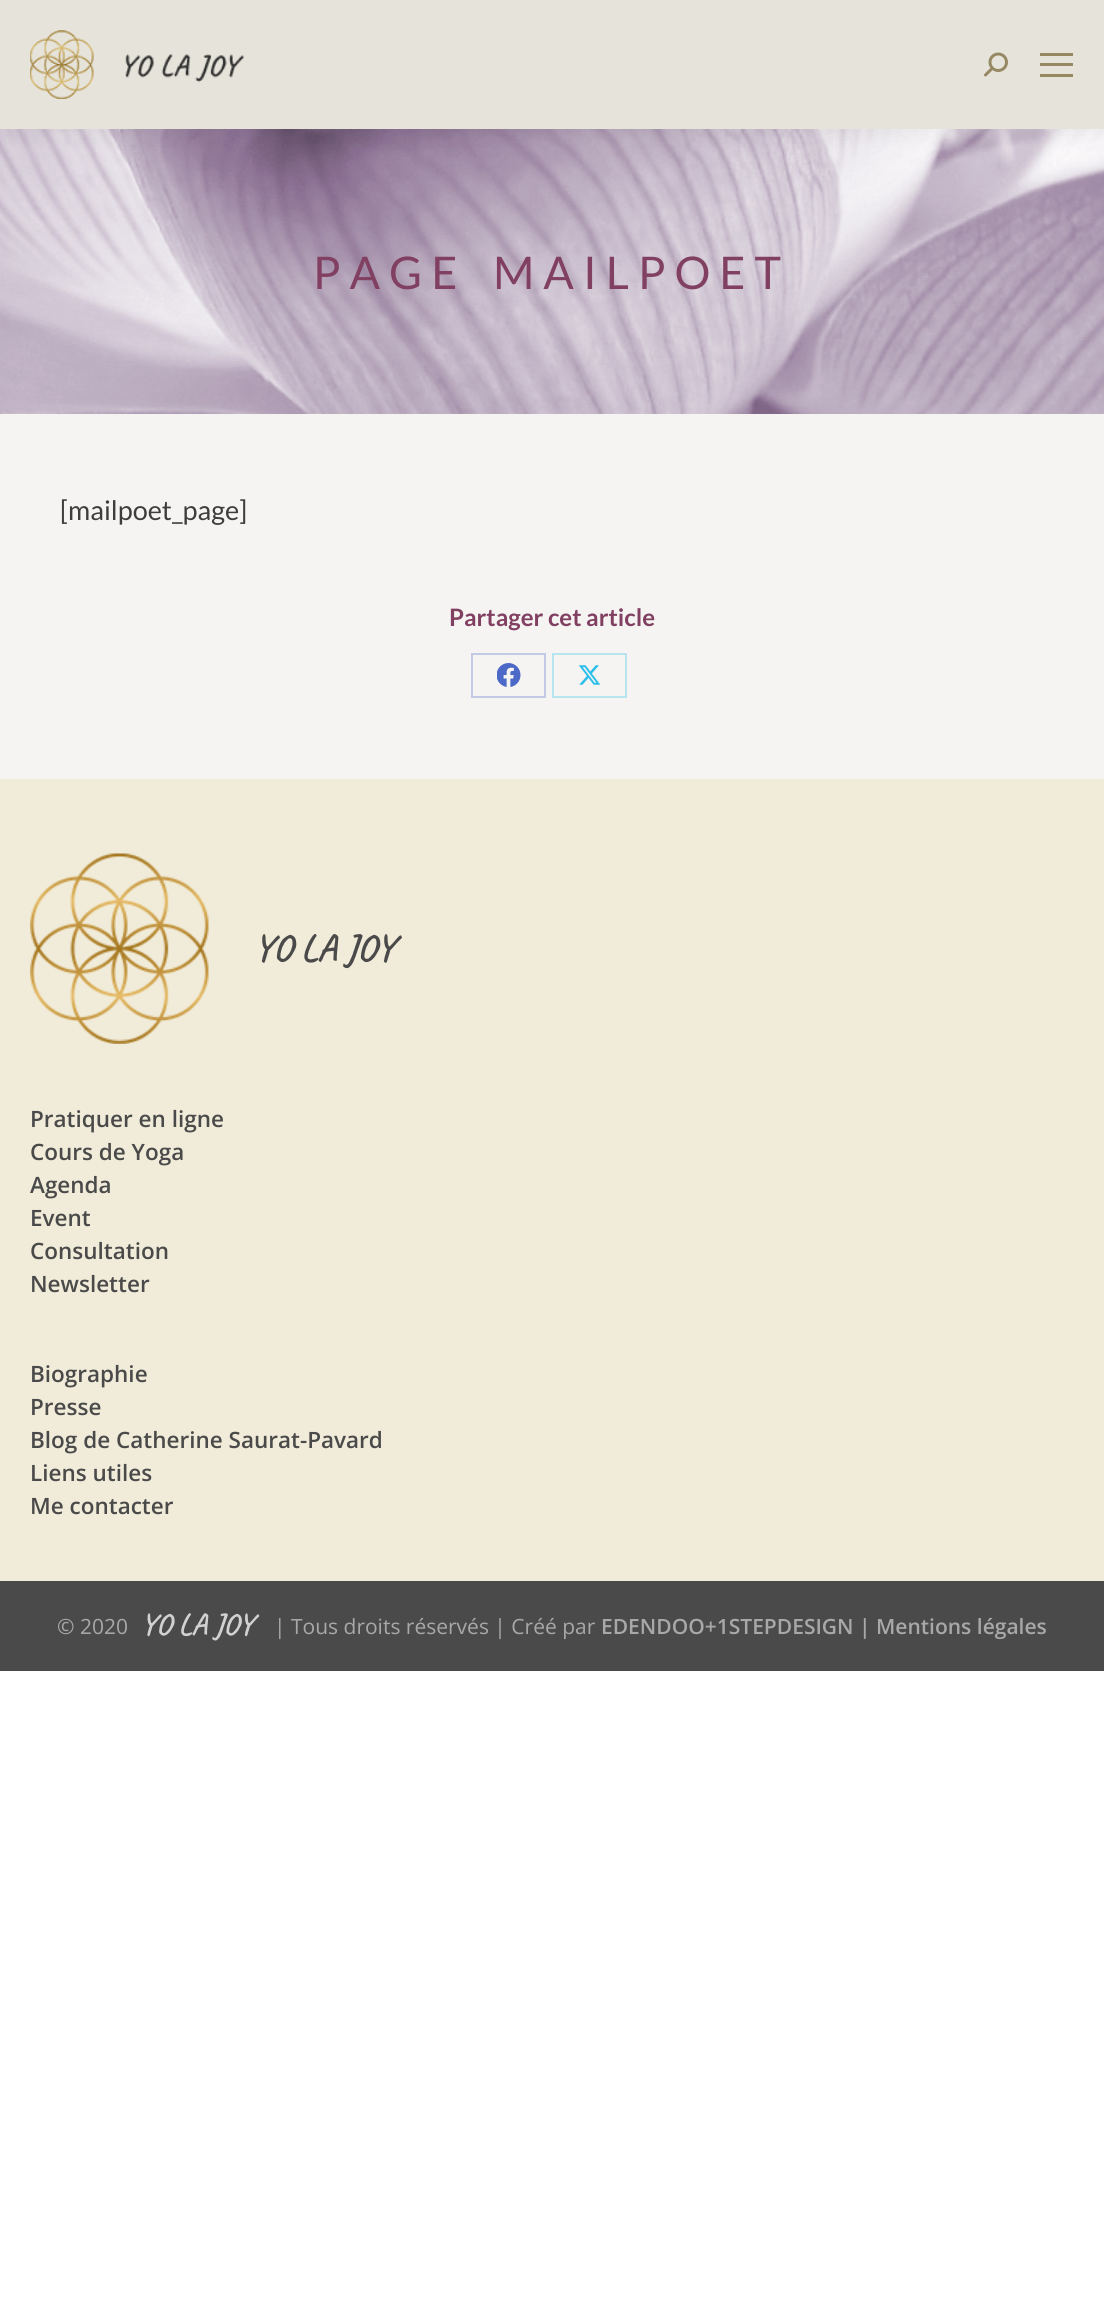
#include <cairo/cairo.h>
#include <math.h>
#include <stddef.h>


static void draw_spaced(cairo_t *cr, double x, double y, const char *s, double letter, double word) {
  cairo_move_to(cr, x, y);
  while (*s) {
    char ch[5] = {0};
    int n = 0;
    do ch[n++] = *s++; while ((*s & 0xC0) == 0x80);
    cairo_show_text(cr, ch);
    cairo_rel_move_to(cr, letter + word * (*ch == ' '), 0);
  }
}

static void rounded_rect(cairo_t *cr, double x, double y, double w, double h, double r) {
  cairo_new_sub_path(cr);
  cairo_arc(cr, x + w - r, y + h - r, r, 0, M_PI / 2);
  cairo_arc(cr, x + r, y + h - r, r, M_PI / 2, M_PI);
  cairo_arc(cr, x + r, y + r, r, M_PI, 1.5 * M_PI);
  cairo_arc(cr, x + w - r, y + r, r, 1.5 * M_PI, 2 * M_PI);
  cairo_close_path(cr);
}

static void draw_shadow(cairo_t *cr, double x, double y, double w, double h, double r, double blur, double alpha) {
  cairo_push_group_with_content(cr, CAIRO_CONTENT_ALPHA);
  cairo_set_operator(cr, CAIRO_OPERATOR_SOURCE);
  for (int i = 15; i >= -15 && fmin(w, h) + blur * i / 3 > 0; i -= 2) {
    double e = blur * i / 6;
    cairo_set_source_rgba(cr, 0, 0, 0, alpha * erfc((i - 1) / 8.5) / 2);
    rounded_rect(cr, x - e, y - e, w + 2 * e, h + 2 * e, fmax(0, fmin(r + e + blur * .6, fmin(w, h) / 2 + e)));
    cairo_fill(cr);
  }
  cairo_pattern_t *soft = cairo_pop_group(cr);
  cairo_mask(cr, soft);
  cairo_pattern_destroy(soft);
}

static void draw_image(cairo_t *cr, const char *path, double x, double y, double w, double h) {
  cairo_surface_t *image = cairo_image_surface_create_from_png(path);
  cairo_save(cr);
  cairo_set_source_surface(cr, image, x, y);
  cairo_rectangle(cr, x, y, w, h);
  cairo_fill(cr);
  cairo_restore(cr);
  cairo_surface_destroy(image);
}

static void draw(cairo_t *cr) {
  cairo_set_source_rgb(cr, 1, 1, 1);
  cairo_paint(cr);
  cairo_set_source_rgb(cr, 245 / 255.0, 244 / 255.0, 242 / 255.0);
  cairo_rectangle(cr, 0, 414, 1104, 365);
  cairo_fill(cr);
  draw_image(cr, "images/3.png", 0, 129, 1104, 285);
  cairo_set_source_rgb(cr, 0, 0, 0);
  draw_shadow(cr, -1, -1, 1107, 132, 0, 11, 0.07);
  cairo_set_source_rgb(cr, 229 / 255.0, 227 / 255.0, 218 / 255.0);
  cairo_rectangle(cr, 0, 0, 1104, 129);
  cairo_fill(cr);
  draw_image(cr, "images/1.png", 30, 30, 215, 69);
  draw_image(cr, "images/2.png", 984, 52, 24, 25);
  cairo_set_source_rgb(cr, 151 / 255.0, 136 / 255.0, 100 / 255.0);
  cairo_rectangle(cr, 1040, 53, 33, 3);
  cairo_fill(cr);
  cairo_rectangle(cr, 1040, 63, 33, 3);
  cairo_fill(cr);
  cairo_rectangle(cr, 1040, 74, 33, 3);
  cairo_fill(cr);
  cairo_rectangle(cr, 472, 654, 73, 43);
  cairo_set_source_rgb(cr, 194 / 255.0, 202 / 255.0, 229 / 255.0);
  cairo_stroke(cr);
  draw_image(cr, "images/4.png", 497, 663, 24, 24);
  cairo_rectangle(cr, 553, 654, 73, 43);
  cairo_set_source_rgb(cr, 184 / 255.0, 228 / 255.0, 240 / 255.0);
  cairo_stroke(cr);
  draw_image(cr, "images/5.png", 578, 665, 23, 20);
  cairo_set_source_rgb(cr, 241 / 255.0, 236 / 255.0, 217 / 255.0);
  cairo_rectangle(cr, 0, 779, 1104, 802);
  cairo_fill(cr);
  draw_image(cr, "images/6.png", 30, 853, 179, 191);
  cairo_set_source_rgb(cr, 74 / 255.0, 74 / 255.0, 74 / 255.0);
  cairo_rectangle(cr, 0, 1581, 1104, 90);
  cairo_fill(cr);
  cairo_select_font_face(cr, "Lato", CAIRO_FONT_SLANT_NORMAL, CAIRO_FONT_WEIGHT_NORMAL);
  cairo_set_font_size(cr, 45);
  cairo_set_source_rgb(cr, 129 / 255.0, 64 / 255.0, 97 / 255.0);
  draw_spaced(cr, 313, 289, "PAGE MAILPOET", 9, 9);
  cairo_set_font_size(cr, 27);
  cairo_set_source_rgb(cr, 61 / 255.0, 61 / 255.0, 61 / 255.0);
  cairo_move_to(cr, 60, 520);
  cairo_show_text(cr, "[mailpoet_page]");
  cairo_select_font_face(cr, "Lato", CAIRO_FONT_SLANT_NORMAL, CAIRO_FONT_WEIGHT_BOLD);
  cairo_set_font_size(cr, 24);
  cairo_set_source_rgb(cr, 129 / 255.0, 64 / 255.0, 97 / 255.0);
  cairo_move_to(cr, 449, 626);
  cairo_show_text(cr, "Partager cet article");
  cairo_select_font_face(cr, "Caveat", CAIRO_FONT_SLANT_NORMAL, CAIRO_FONT_WEIGHT_BOLD);
  cairo_set_font_size(cr, 37.5);
  cairo_set_source_rgb(cr, 74 / 255.0, 74 / 255.0, 74 / 255.0);
  cairo_move_to(cr, 254, 960);
  cairo_show_text(cr, "YO LA JOY");
  cairo_select_font_face(cr, "Open Sans SemiBold", CAIRO_FONT_SLANT_NORMAL, CAIRO_FONT_WEIGHT_NORMAL);
  cairo_set_font_size(cr, 22.5);
  cairo_move_to(cr, 30, 1127);
  cairo_show_text(cr, "Pratiquer en ligne");
  cairo_move_to(cr, 30, 1160);
  cairo_show_text(cr, "Cours de Yoga");
  cairo_move_to(cr, 30, 1193);
  cairo_show_text(cr, "Agenda");
  cairo_move_to(cr, 30, 1226);
  cairo_show_text(cr, "Event");
  cairo_move_to(cr, 30, 1259);
  cairo_show_text(cr, "Consultation");
  cairo_move_to(cr, 30, 1292);
  cairo_show_text(cr, "Newsletter");
  cairo_move_to(cr, 30, 1382);
  cairo_show_text(cr, "Biographie");
  cairo_move_to(cr, 30, 1415);
  cairo_show_text(cr, "Presse");
  cairo_move_to(cr, 30, 1448);
  cairo_show_text(cr, "Blog de Catherine Saurat-Pavard");
  cairo_move_to(cr, 30, 1481);
  cairo_show_text(cr, "Liens utiles");
  cairo_move_to(cr, 30, 1514);
  cairo_show_text(cr, "Me contacter");
  cairo_select_font_face(cr, "Open Sans", CAIRO_FONT_SLANT_NORMAL, CAIRO_FONT_WEIGHT_NORMAL);
  cairo_set_font_size(cr, 21);
  cairo_set_source_rgb(cr, 168 / 255.0, 168 / 255.0, 168 / 255.0);
  cairo_move_to(cr, 57, 1634);
  cairo_show_text(cr, "© 2020");
  cairo_select_font_face(cr, "Caveat", CAIRO_FONT_SLANT_NORMAL, CAIRO_FONT_WEIGHT_BOLD);
  cairo_set_font_size(cr, 30);
  cairo_set_source_rgb(cr, 209 / 255.0, 209 / 255.0, 209 / 255.0);
  cairo_move_to(cr, 141, 1634);
  cairo_show_text(cr, "YO LA JOY");
  cairo_select_font_face(cr, "Open Sans", CAIRO_FONT_SLANT_NORMAL, CAIRO_FONT_WEIGHT_NORMAL);
  cairo_set_font_size(cr, 21);
  cairo_set_source_rgb(cr, 168 / 255.0, 168 / 255.0, 168 / 255.0);
  cairo_move_to(cr, 274, 1634);
  cairo_show_text(cr, "| Tous droits réservés | Créé par");
  cairo_select_font_face(cr, "Open Sans SemiBold", CAIRO_FONT_SLANT_NORMAL, CAIRO_FONT_WEIGHT_NORMAL);
  cairo_move_to(cr, 601, 1634);
  cairo_show_text(cr, "EDENDOO+1STEPDESIGN | Mentions légales");
}

int main(void) {
  cairo_surface_t *surface = cairo_image_surface_create(CAIRO_FORMAT_RGB24, 1104, 2311);
  cairo_t *cr = cairo_create(surface);
  cairo_font_options_t *options = cairo_font_options_create();
  cairo_font_options_set_hint_metrics(options, CAIRO_HINT_METRICS_OFF);
  cairo_font_options_set_hint_style(options, CAIRO_HINT_STYLE_NONE);
  cairo_set_font_options(cr, options);
  cairo_set_miter_limit(cr, 4);
  draw(cr);
  cairo_surface_write_to_png(surface, "out.png");
  cairo_font_options_destroy(options);
  cairo_destroy(cr);
  cairo_surface_destroy(surface);
  return 0;
}
